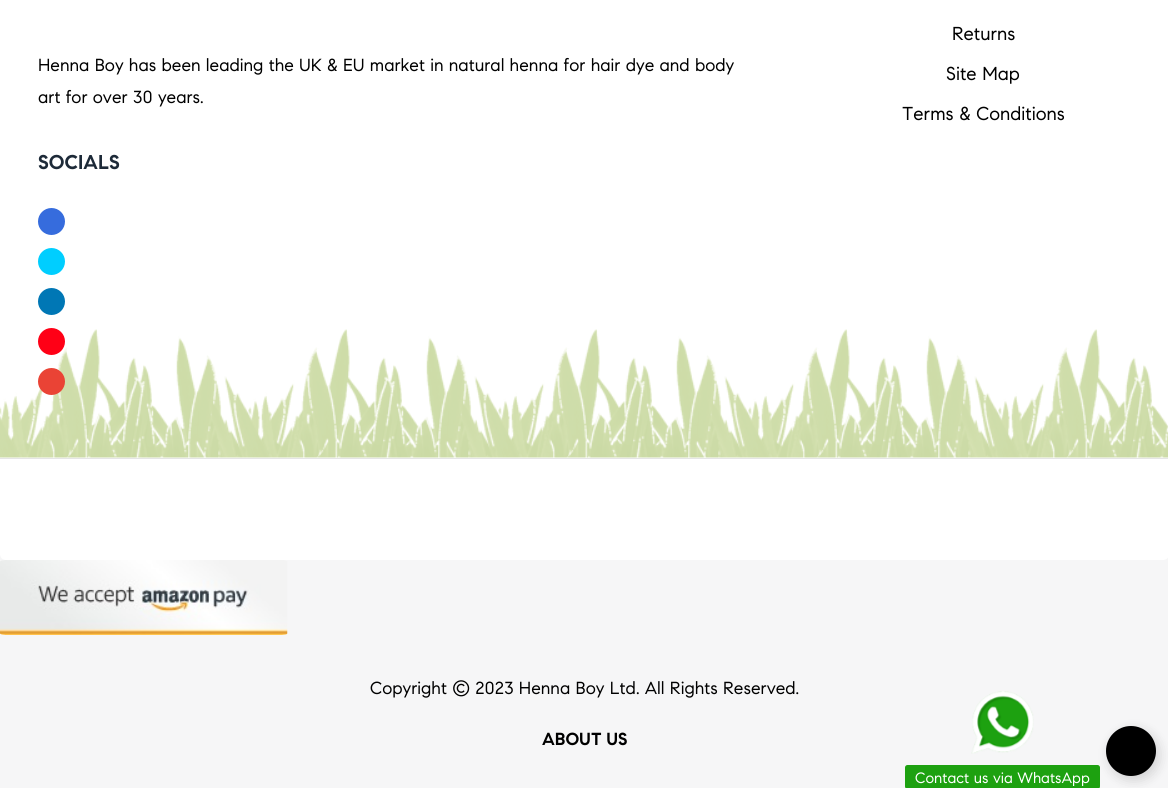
#include <cairo/cairo.h>
#include <math.h>
#include <stddef.h>


static void rounded_rect(cairo_t *cr, double x, double y, double w, double h, double r) {
  cairo_new_sub_path(cr);
  cairo_arc(cr, x + w - r, y + h - r, r, 0, M_PI / 2);
  cairo_arc(cr, x + r, y + h - r, r, M_PI / 2, M_PI);
  cairo_arc(cr, x + r, y + r, r, M_PI, 1.5 * M_PI);
  cairo_arc(cr, x + w - r, y + r, r, 1.5 * M_PI, 2 * M_PI);
  cairo_close_path(cr);
}

static void draw_shadow(cairo_t *cr, double x, double y, double w, double h, double r, double blur, double alpha) {
  cairo_push_group_with_content(cr, CAIRO_CONTENT_ALPHA);
  cairo_set_operator(cr, CAIRO_OPERATOR_SOURCE);
  for (int i = 15; i >= -15 && fmin(w, h) + blur * i / 3 > 0; i -= 2) {
    double e = blur * i / 6;
    cairo_set_source_rgba(cr, 0, 0, 0, alpha * erfc((i - 1) / 8.5) / 2);
    rounded_rect(cr, x - e, y - e, w + 2 * e, h + 2 * e, fmax(0, fmin(r + e + blur * .6, fmin(w, h) / 2 + e)));
    cairo_fill(cr);
  }
  cairo_pattern_t *soft = cairo_pop_group(cr);
  cairo_mask(cr, soft);
  cairo_pattern_destroy(soft);
}

static void draw_image(cairo_t *cr, const char *path, double x, double y, double w, double h) {
  cairo_surface_t *image = cairo_image_surface_create_from_png(path);
  cairo_save(cr);
  cairo_set_source_surface(cr, image, x, y);
  cairo_rectangle(cr, x, y, w, h);
  cairo_fill(cr);
  cairo_restore(cr);
  cairo_surface_destroy(image);
}

static void draw(cairo_t *cr) {
  cairo_set_source_rgb(cr, 246 / 255.0, 246 / 255.0, 247 / 255.0);
  cairo_paint(cr);
  cairo_set_source_rgb(cr, 1, 1, 1);
  cairo_rectangle(cr, 0, 0, 1168, 458);
  cairo_fill(cr);
  draw_image(cr, "images/1.png", 0, 329, 1168, 129);
  cairo_set_source_rgb(cr, 229 / 255.0, 229 / 255.0, 229 / 255.0);
  cairo_rectangle(cr, 0, 458, 1168, 1);
  cairo_fill(cr);
  cairo_set_source_rgb(cr, 54 / 255.0, 108 / 255.0, 221 / 255.0);
  cairo_arc(cr, 51.5, 221.5, 13.5, 0, 2 * M_PI);
  cairo_fill(cr);
  cairo_set_source_rgb(cr, 0, 206 / 255.0, 1);
  cairo_arc(cr, 51.5, 261.5, 13.5, 0, 2 * M_PI);
  cairo_fill(cr);
  cairo_set_source_rgb(cr, 0, 119 / 255.0, 181 / 255.0);
  cairo_arc(cr, 51.5, 301.5, 13.5, 0, 2 * M_PI);
  cairo_fill(cr);
  cairo_set_source_rgb(cr, 1, 0, 22 / 255.0);
  cairo_arc(cr, 51.5, 341.5, 13.5, 0, 2 * M_PI);
  cairo_fill(cr);
  cairo_set_source_rgb(cr, 234 / 255.0, 67 / 255.0, 53 / 255.0);
  cairo_arc(cr, 51.5, 381.5, 13.5, 0, 2 * M_PI);
  cairo_fill(cr);
  cairo_set_source_rgb(cr, 1, 1, 1);
  cairo_new_path(cr);
  cairo_move_to(cr, 0, 459);
  cairo_line_to(cr, 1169, 459);
  cairo_line_to(cr, 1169, 554);
  cairo_curve_to(cr, 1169, 557.5, 1166.5, 560, 1163, 560);
  cairo_line_to(cr, 6, 560);
  cairo_curve_to(cr, 2.5, 560, 0, 557.5, 0, 554);
  cairo_close_path(cr);
  cairo_fill(cr);
  draw_image(cr, "images/2.png", 0, 560, 288, 75);
  draw_image(cr, "images/3.png", 971, 691, 63, 63);
  cairo_set_source_rgb(cr, 0, 0, 0);
  draw_shadow(cr, 1109, 730, 50, 50, 25, 6, 0.15);
  cairo_set_source_rgb(cr, 29 / 255.0, 161 / 255.0, 16 / 255.0);
  rounded_rect(cr, 905, 765, 195, 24, 2.5);
  cairo_fill(cr);
  cairo_set_source_rgb(cr, 0, 0, 0);
  cairo_arc(cr, 1131, 751, 25, 0, 2 * M_PI);
  cairo_fill(cr);
  cairo_select_font_face(cr, "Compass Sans", CAIRO_FONT_SLANT_NORMAL, CAIRO_FONT_WEIGHT_NORMAL);
  cairo_set_font_size(cr, 17.5);
  cairo_move_to(cr, 38, 71);
  cairo_show_text(cr, "Henna Boy has been leading the UK & EU market in natural henna for hair dye and body");
  cairo_move_to(cr, 38, 103);
  cairo_show_text(cr, "art for over 30 years.");
  cairo_set_font_size(cr, 18.75);
  cairo_move_to(cr, 952, 40);
  cairo_show_text(cr, "Returns");
  cairo_move_to(cr, 946, 80);
  cairo_show_text(cr, "Site Map");
  cairo_move_to(cr, 902, 120);
  cairo_show_text(cr, "Terms & Conditions");
  cairo_select_font_face(cr, "Compass Sans", CAIRO_FONT_SLANT_NORMAL, CAIRO_FONT_WEIGHT_BOLD);
  cairo_set_font_size(cr, 20);
  cairo_set_source_rgb(cr, 29 / 255.0, 42 / 255.0, 56 / 255.0);
  cairo_move_to(cr, 38, 169);
  cairo_show_text(cr, "SOCIALS");
  cairo_select_font_face(cr, "Compass Sans", CAIRO_FONT_SLANT_NORMAL, CAIRO_FONT_WEIGHT_NORMAL);
  cairo_set_font_size(cr, 15);
  cairo_set_source_rgb(cr, 1, 1, 1);
  cairo_move_to(cr, 915, 783);
  cairo_show_text(cr, "Contact us via WhatsApp");
  cairo_set_font_size(cr, 17.5);
  cairo_set_source_rgb(cr, 0, 0, 0);
  cairo_move_to(cr, 370, 694);
  cairo_show_text(cr, "Copyright © 2023 Henna Boy Ltd. All Rights Reserved.");
  cairo_select_font_face(cr, "Compass Sans", CAIRO_FONT_SLANT_NORMAL, CAIRO_FONT_WEIGHT_BOLD);
  cairo_move_to(cr, 542, 745);
  cairo_show_text(cr, "ABOUT US");
}

int main(void) {
  cairo_surface_t *surface = cairo_image_surface_create(CAIRO_FORMAT_RGB24, 1168, 788);
  cairo_t *cr = cairo_create(surface);
  cairo_font_options_t *options = cairo_font_options_create();
  cairo_font_options_set_hint_metrics(options, CAIRO_HINT_METRICS_OFF);
  cairo_font_options_set_hint_style(options, CAIRO_HINT_STYLE_NONE);
  cairo_set_font_options(cr, options);
  cairo_set_miter_limit(cr, 4);
  draw(cr);
  cairo_surface_write_to_png(surface, "out.png");
  cairo_font_options_destroy(options);
  cairo_destroy(cr);
  cairo_surface_destroy(surface);
  return 0;
}
